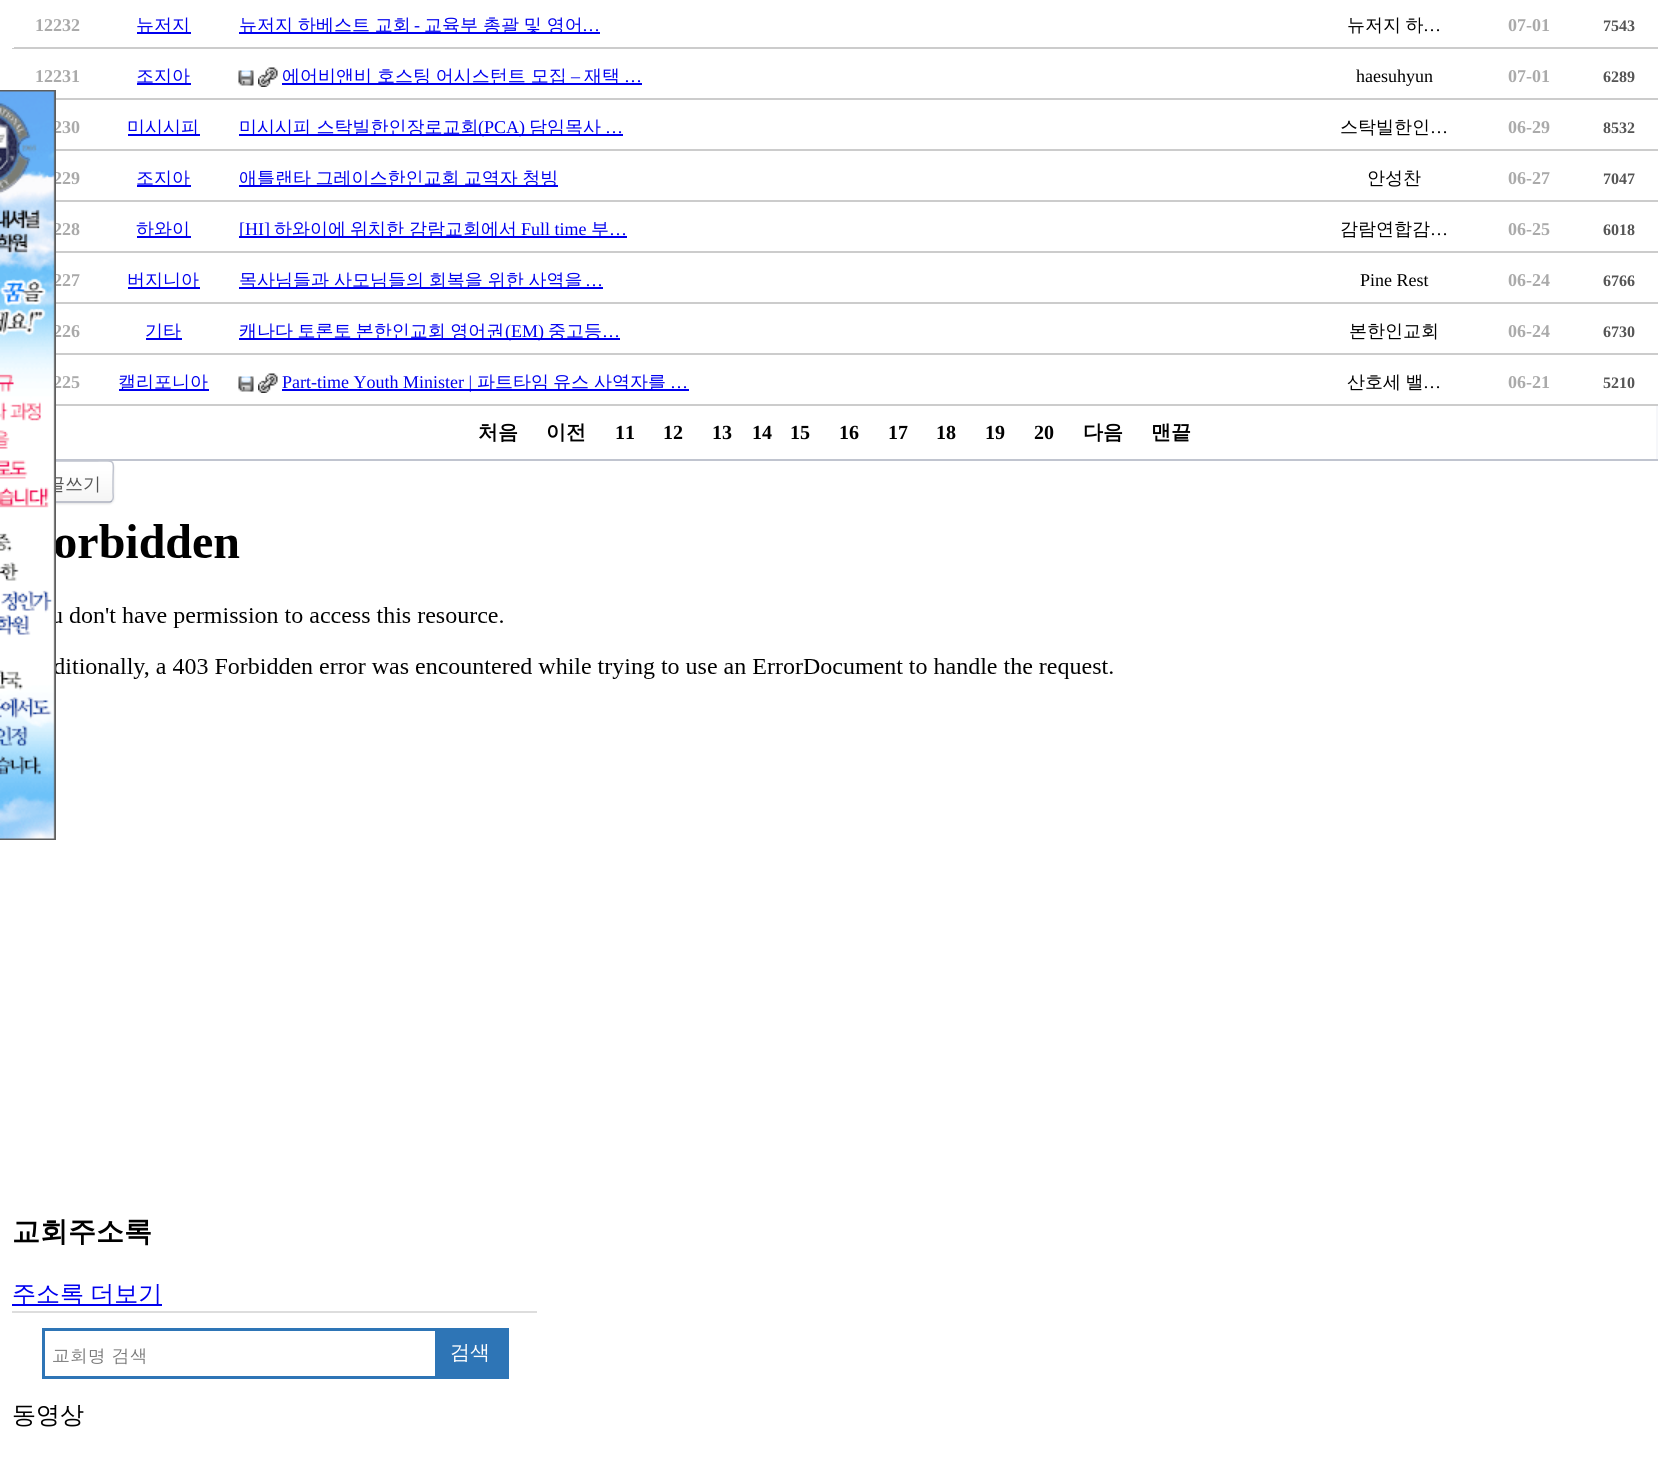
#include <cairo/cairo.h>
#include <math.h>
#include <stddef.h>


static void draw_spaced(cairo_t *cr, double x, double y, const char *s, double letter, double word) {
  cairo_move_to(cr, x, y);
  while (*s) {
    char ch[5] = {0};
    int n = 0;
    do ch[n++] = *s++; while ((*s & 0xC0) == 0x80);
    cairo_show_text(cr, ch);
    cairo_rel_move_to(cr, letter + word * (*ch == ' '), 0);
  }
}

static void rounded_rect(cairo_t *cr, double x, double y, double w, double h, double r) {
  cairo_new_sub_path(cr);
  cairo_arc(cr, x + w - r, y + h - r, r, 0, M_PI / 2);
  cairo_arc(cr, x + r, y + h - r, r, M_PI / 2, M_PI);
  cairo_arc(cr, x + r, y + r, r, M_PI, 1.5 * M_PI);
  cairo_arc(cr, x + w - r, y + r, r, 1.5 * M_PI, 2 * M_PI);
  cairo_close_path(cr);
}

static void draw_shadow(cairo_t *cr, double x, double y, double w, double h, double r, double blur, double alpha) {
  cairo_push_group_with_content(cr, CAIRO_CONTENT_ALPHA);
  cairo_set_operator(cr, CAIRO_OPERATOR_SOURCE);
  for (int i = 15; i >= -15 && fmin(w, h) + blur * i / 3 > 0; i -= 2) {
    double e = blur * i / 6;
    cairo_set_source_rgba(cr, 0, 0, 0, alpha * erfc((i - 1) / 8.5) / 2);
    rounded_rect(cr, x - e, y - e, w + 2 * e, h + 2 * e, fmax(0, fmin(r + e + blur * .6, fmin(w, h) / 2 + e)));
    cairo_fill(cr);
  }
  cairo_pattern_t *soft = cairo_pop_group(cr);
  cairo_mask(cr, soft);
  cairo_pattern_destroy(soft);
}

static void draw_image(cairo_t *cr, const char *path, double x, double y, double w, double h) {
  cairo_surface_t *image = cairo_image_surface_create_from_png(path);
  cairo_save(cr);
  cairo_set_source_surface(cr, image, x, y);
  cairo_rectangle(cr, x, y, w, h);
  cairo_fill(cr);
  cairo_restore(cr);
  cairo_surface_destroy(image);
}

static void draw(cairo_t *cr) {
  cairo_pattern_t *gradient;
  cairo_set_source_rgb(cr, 1, 1, 1);
  cairo_paint(cr);
  cairo_set_source_rgb(cr, 204 / 255.0, 204 / 255.0, 204 / 255.0);
  cairo_rectangle(cr, 1581, 47, 77, 2);
  cairo_fill(cr);
  cairo_set_source_rgb(cr, 1, 1, 1);
  cairo_rectangle(cr, 1581, 47, 2, 1);
  cairo_fill(cr);
  cairo_set_source_rgb(cr, 204 / 255.0, 204 / 255.0, 204 / 255.0);
  cairo_rectangle(cr, 1476, 47, 107, 2);
  cairo_fill(cr);
  cairo_set_source_rgb(cr, 1, 1, 1);
  cairo_rectangle(cr, 1476, 47, 2, 1);
  cairo_fill(cr);
  cairo_set_source_rgb(cr, 204 / 255.0, 204 / 255.0, 204 / 255.0);
  cairo_rectangle(cr, 1311, 47, 167, 2);
  cairo_fill(cr);
  cairo_set_source_rgb(cr, 1, 1, 1);
  cairo_rectangle(cr, 1311, 47, 2, 1);
  cairo_fill(cr);
  cairo_set_source_rgb(cr, 204 / 255.0, 204 / 255.0, 204 / 255.0);
  cairo_rectangle(cr, 222, 47, 1091, 2);
  cairo_fill(cr);
  cairo_set_source_rgb(cr, 1, 1, 1);
  cairo_rectangle(cr, 222, 47, 2, 1);
  cairo_fill(cr);
  cairo_set_source_rgb(cr, 204 / 255.0, 204 / 255.0, 204 / 255.0);
  cairo_rectangle(cr, 102, 47, 122, 2);
  cairo_fill(cr);
  cairo_set_source_rgb(cr, 1, 1, 1);
  cairo_rectangle(cr, 102, 47, 2, 1);
  cairo_fill(cr);
  cairo_set_source_rgb(cr, 204 / 255.0, 204 / 255.0, 204 / 255.0);
  cairo_rectangle(cr, 12, 47, 92, 2);
  cairo_fill(cr);
  cairo_set_source_rgb(cr, 1, 1, 1);
  cairo_rectangle(cr, 12, 47, 2, 1);
  cairo_fill(cr);
  cairo_set_source_rgb(cr, 0, 0, 238 / 255.0);
  cairo_rectangle(cr, 137, 32, 54, 2);
  cairo_fill(cr);
  cairo_rectangle(cr, 239, 32, 361, 2);
  cairo_fill(cr);
  cairo_set_source_rgb(cr, 204 / 255.0, 204 / 255.0, 204 / 255.0);
  cairo_rectangle(cr, 1581, 98, 77, 2);
  cairo_fill(cr);
  cairo_set_source_rgb(cr, 1, 1, 1);
  cairo_rectangle(cr, 1581, 98, 2, 1);
  cairo_fill(cr);
  cairo_set_source_rgb(cr, 204 / 255.0, 204 / 255.0, 204 / 255.0);
  cairo_rectangle(cr, 1476, 98, 107, 2);
  cairo_fill(cr);
  cairo_set_source_rgb(cr, 1, 1, 1);
  cairo_rectangle(cr, 1476, 98, 2, 1);
  cairo_fill(cr);
  cairo_set_source_rgb(cr, 204 / 255.0, 204 / 255.0, 204 / 255.0);
  cairo_rectangle(cr, 1311, 98, 167, 2);
  cairo_fill(cr);
  cairo_set_source_rgb(cr, 1, 1, 1);
  cairo_rectangle(cr, 1311, 98, 2, 1);
  cairo_fill(cr);
  cairo_set_source_rgb(cr, 204 / 255.0, 204 / 255.0, 204 / 255.0);
  cairo_rectangle(cr, 222, 98, 1091, 2);
  cairo_fill(cr);
  cairo_set_source_rgb(cr, 1, 1, 1);
  cairo_rectangle(cr, 222, 98, 2, 1);
  cairo_fill(cr);
  cairo_set_source_rgb(cr, 204 / 255.0, 204 / 255.0, 204 / 255.0);
  cairo_rectangle(cr, 102, 98, 122, 2);
  cairo_fill(cr);
  cairo_set_source_rgb(cr, 1, 1, 1);
  cairo_rectangle(cr, 102, 98, 2, 1);
  cairo_fill(cr);
  cairo_set_source_rgb(cr, 204 / 255.0, 204 / 255.0, 204 / 255.0);
  cairo_rectangle(cr, 56, 98, 48, 2);
  cairo_fill(cr);
  cairo_set_source_rgb(cr, 0, 0, 238 / 255.0);
  cairo_rectangle(cr, 137, 83, 54, 2);
  cairo_fill(cr);
  draw_image(cr, "images/1.png", 238, 70, 16, 16);
  draw_image(cr, "images/2.png", 258, 67, 20, 20);
  cairo_rectangle(cr, 282, 83, 360, 2);
  cairo_fill(cr);
  cairo_set_source_rgb(cr, 204 / 255.0, 204 / 255.0, 204 / 255.0);
  cairo_rectangle(cr, 1581, 149, 77, 2);
  cairo_fill(cr);
  cairo_set_source_rgb(cr, 1, 1, 1);
  cairo_rectangle(cr, 1581, 149, 2, 1);
  cairo_fill(cr);
  cairo_set_source_rgb(cr, 204 / 255.0, 204 / 255.0, 204 / 255.0);
  cairo_rectangle(cr, 1476, 149, 107, 2);
  cairo_fill(cr);
  cairo_set_source_rgb(cr, 1, 1, 1);
  cairo_rectangle(cr, 1476, 149, 2, 1);
  cairo_fill(cr);
  cairo_set_source_rgb(cr, 204 / 255.0, 204 / 255.0, 204 / 255.0);
  cairo_rectangle(cr, 1311, 149, 167, 2);
  cairo_fill(cr);
  cairo_set_source_rgb(cr, 1, 1, 1);
  cairo_rectangle(cr, 1311, 149, 2, 1);
  cairo_fill(cr);
  cairo_set_source_rgb(cr, 204 / 255.0, 204 / 255.0, 204 / 255.0);
  cairo_rectangle(cr, 222, 149, 1091, 2);
  cairo_fill(cr);
  cairo_set_source_rgb(cr, 1, 1, 1);
  cairo_rectangle(cr, 222, 149, 2, 1);
  cairo_fill(cr);
  cairo_set_source_rgb(cr, 204 / 255.0, 204 / 255.0, 204 / 255.0);
  cairo_rectangle(cr, 102, 149, 122, 2);
  cairo_fill(cr);
  cairo_set_source_rgb(cr, 1, 1, 1);
  cairo_rectangle(cr, 102, 149, 2, 1);
  cairo_fill(cr);
  cairo_set_source_rgb(cr, 204 / 255.0, 204 / 255.0, 204 / 255.0);
  cairo_rectangle(cr, 56, 149, 48, 2);
  cairo_fill(cr);
  cairo_set_source_rgb(cr, 0, 0, 238 / 255.0);
  cairo_rectangle(cr, 128, 134, 72, 2);
  cairo_fill(cr);
  cairo_rectangle(cr, 239, 134, 384, 2);
  cairo_fill(cr);
  cairo_set_source_rgb(cr, 204 / 255.0, 204 / 255.0, 204 / 255.0);
  cairo_rectangle(cr, 1581, 200, 77, 2);
  cairo_fill(cr);
  cairo_set_source_rgb(cr, 1, 1, 1);
  cairo_rectangle(cr, 1581, 200, 2, 1);
  cairo_fill(cr);
  cairo_set_source_rgb(cr, 204 / 255.0, 204 / 255.0, 204 / 255.0);
  cairo_rectangle(cr, 1476, 200, 107, 2);
  cairo_fill(cr);
  cairo_set_source_rgb(cr, 1, 1, 1);
  cairo_rectangle(cr, 1476, 200, 2, 1);
  cairo_fill(cr);
  cairo_set_source_rgb(cr, 204 / 255.0, 204 / 255.0, 204 / 255.0);
  cairo_rectangle(cr, 1311, 200, 167, 2);
  cairo_fill(cr);
  cairo_set_source_rgb(cr, 1, 1, 1);
  cairo_rectangle(cr, 1311, 200, 2, 1);
  cairo_fill(cr);
  cairo_set_source_rgb(cr, 204 / 255.0, 204 / 255.0, 204 / 255.0);
  cairo_rectangle(cr, 222, 200, 1091, 2);
  cairo_fill(cr);
  cairo_set_source_rgb(cr, 1, 1, 1);
  cairo_rectangle(cr, 222, 200, 2, 1);
  cairo_fill(cr);
  cairo_set_source_rgb(cr, 204 / 255.0, 204 / 255.0, 204 / 255.0);
  cairo_rectangle(cr, 102, 200, 122, 2);
  cairo_fill(cr);
  cairo_set_source_rgb(cr, 1, 1, 1);
  cairo_rectangle(cr, 102, 200, 2, 1);
  cairo_fill(cr);
  cairo_set_source_rgb(cr, 204 / 255.0, 204 / 255.0, 204 / 255.0);
  cairo_rectangle(cr, 56, 200, 48, 2);
  cairo_fill(cr);
  cairo_set_source_rgb(cr, 0, 0, 238 / 255.0);
  cairo_rectangle(cr, 137, 185, 54, 2);
  cairo_fill(cr);
  cairo_rectangle(cr, 239, 185, 319, 2);
  cairo_fill(cr);
  cairo_set_source_rgb(cr, 204 / 255.0, 204 / 255.0, 204 / 255.0);
  cairo_rectangle(cr, 1581, 251, 77, 2);
  cairo_fill(cr);
  cairo_set_source_rgb(cr, 1, 1, 1);
  cairo_rectangle(cr, 1581, 251, 2, 1);
  cairo_fill(cr);
  cairo_set_source_rgb(cr, 204 / 255.0, 204 / 255.0, 204 / 255.0);
  cairo_rectangle(cr, 1476, 251, 107, 2);
  cairo_fill(cr);
  cairo_set_source_rgb(cr, 1, 1, 1);
  cairo_rectangle(cr, 1476, 251, 2, 1);
  cairo_fill(cr);
  cairo_set_source_rgb(cr, 204 / 255.0, 204 / 255.0, 204 / 255.0);
  cairo_rectangle(cr, 1311, 251, 167, 2);
  cairo_fill(cr);
  cairo_set_source_rgb(cr, 1, 1, 1);
  cairo_rectangle(cr, 1311, 251, 2, 1);
  cairo_fill(cr);
  cairo_set_source_rgb(cr, 204 / 255.0, 204 / 255.0, 204 / 255.0);
  cairo_rectangle(cr, 222, 251, 1091, 2);
  cairo_fill(cr);
  cairo_set_source_rgb(cr, 1, 1, 1);
  cairo_rectangle(cr, 222, 251, 2, 1);
  cairo_fill(cr);
  cairo_set_source_rgb(cr, 204 / 255.0, 204 / 255.0, 204 / 255.0);
  cairo_rectangle(cr, 102, 251, 122, 2);
  cairo_fill(cr);
  cairo_set_source_rgb(cr, 1, 1, 1);
  cairo_rectangle(cr, 102, 251, 2, 1);
  cairo_fill(cr);
  cairo_set_source_rgb(cr, 204 / 255.0, 204 / 255.0, 204 / 255.0);
  cairo_rectangle(cr, 56, 251, 48, 2);
  cairo_fill(cr);
  cairo_set_source_rgb(cr, 0, 0, 238 / 255.0);
  cairo_rectangle(cr, 137, 236, 54, 2);
  cairo_fill(cr);
  cairo_rectangle(cr, 239, 236, 388, 2);
  cairo_fill(cr);
  cairo_set_source_rgb(cr, 204 / 255.0, 204 / 255.0, 204 / 255.0);
  cairo_rectangle(cr, 1581, 302, 77, 2);
  cairo_fill(cr);
  cairo_set_source_rgb(cr, 1, 1, 1);
  cairo_rectangle(cr, 1581, 302, 2, 1);
  cairo_fill(cr);
  cairo_set_source_rgb(cr, 204 / 255.0, 204 / 255.0, 204 / 255.0);
  cairo_rectangle(cr, 1476, 302, 107, 2);
  cairo_fill(cr);
  cairo_set_source_rgb(cr, 1, 1, 1);
  cairo_rectangle(cr, 1476, 302, 2, 1);
  cairo_fill(cr);
  cairo_set_source_rgb(cr, 204 / 255.0, 204 / 255.0, 204 / 255.0);
  cairo_rectangle(cr, 1311, 302, 167, 2);
  cairo_fill(cr);
  cairo_set_source_rgb(cr, 1, 1, 1);
  cairo_rectangle(cr, 1311, 302, 2, 1);
  cairo_fill(cr);
  cairo_set_source_rgb(cr, 204 / 255.0, 204 / 255.0, 204 / 255.0);
  cairo_rectangle(cr, 222, 302, 1091, 2);
  cairo_fill(cr);
  cairo_set_source_rgb(cr, 1, 1, 1);
  cairo_rectangle(cr, 222, 302, 2, 1);
  cairo_fill(cr);
  cairo_set_source_rgb(cr, 204 / 255.0, 204 / 255.0, 204 / 255.0);
  cairo_rectangle(cr, 102, 302, 122, 2);
  cairo_fill(cr);
  cairo_set_source_rgb(cr, 1, 1, 1);
  cairo_rectangle(cr, 102, 302, 2, 1);
  cairo_fill(cr);
  cairo_set_source_rgb(cr, 204 / 255.0, 204 / 255.0, 204 / 255.0);
  cairo_rectangle(cr, 56, 302, 48, 2);
  cairo_fill(cr);
  cairo_set_source_rgb(cr, 0, 0, 238 / 255.0);
  cairo_rectangle(cr, 128, 287, 72, 2);
  cairo_fill(cr);
  cairo_rectangle(cr, 239, 287, 364, 2);
  cairo_fill(cr);
  cairo_set_source_rgb(cr, 204 / 255.0, 204 / 255.0, 204 / 255.0);
  cairo_rectangle(cr, 1581, 353, 77, 2);
  cairo_fill(cr);
  cairo_set_source_rgb(cr, 1, 1, 1);
  cairo_rectangle(cr, 1581, 353, 2, 1);
  cairo_fill(cr);
  cairo_set_source_rgb(cr, 204 / 255.0, 204 / 255.0, 204 / 255.0);
  cairo_rectangle(cr, 1476, 353, 107, 2);
  cairo_fill(cr);
  cairo_set_source_rgb(cr, 1, 1, 1);
  cairo_rectangle(cr, 1476, 353, 2, 1);
  cairo_fill(cr);
  cairo_set_source_rgb(cr, 204 / 255.0, 204 / 255.0, 204 / 255.0);
  cairo_rectangle(cr, 1311, 353, 167, 2);
  cairo_fill(cr);
  cairo_set_source_rgb(cr, 1, 1, 1);
  cairo_rectangle(cr, 1311, 353, 2, 1);
  cairo_fill(cr);
  cairo_set_source_rgb(cr, 204 / 255.0, 204 / 255.0, 204 / 255.0);
  cairo_rectangle(cr, 222, 353, 1091, 2);
  cairo_fill(cr);
  cairo_set_source_rgb(cr, 1, 1, 1);
  cairo_rectangle(cr, 222, 353, 2, 1);
  cairo_fill(cr);
  cairo_set_source_rgb(cr, 204 / 255.0, 204 / 255.0, 204 / 255.0);
  cairo_rectangle(cr, 102, 353, 122, 2);
  cairo_fill(cr);
  cairo_set_source_rgb(cr, 1, 1, 1);
  cairo_rectangle(cr, 102, 353, 2, 1);
  cairo_fill(cr);
  cairo_set_source_rgb(cr, 204 / 255.0, 204 / 255.0, 204 / 255.0);
  cairo_rectangle(cr, 56, 353, 48, 2);
  cairo_fill(cr);
  cairo_set_source_rgb(cr, 0, 0, 238 / 255.0);
  cairo_rectangle(cr, 146, 338, 36, 2);
  cairo_fill(cr);
  cairo_rectangle(cr, 239, 338, 381, 2);
  cairo_fill(cr);
  cairo_set_source_rgb(cr, 246 / 255.0, 247 / 255.0, 250 / 255.0);
  cairo_rectangle(cr, 1656, 404, 2, 57);
  cairo_fill(cr);
  cairo_set_source_rgb(cr, 1, 1, 1);
  cairo_rectangle(cr, 1656, 404, 2, 1);
  cairo_fill(cr);
  cairo_set_source_rgb(cr, 204 / 255.0, 204 / 255.0, 204 / 255.0);
  cairo_rectangle(cr, 1581, 404, 77, 2);
  cairo_fill(cr);
  cairo_set_source_rgb(cr, 1, 1, 1);
  cairo_rectangle(cr, 1581, 404, 2, 1);
  cairo_fill(cr);
  cairo_set_source_rgb(cr, 204 / 255.0, 204 / 255.0, 204 / 255.0);
  cairo_rectangle(cr, 1476, 404, 107, 2);
  cairo_fill(cr);
  cairo_set_source_rgb(cr, 1, 1, 1);
  cairo_rectangle(cr, 1476, 404, 2, 1);
  cairo_fill(cr);
  cairo_set_source_rgb(cr, 204 / 255.0, 204 / 255.0, 204 / 255.0);
  cairo_rectangle(cr, 1311, 404, 167, 2);
  cairo_fill(cr);
  cairo_set_source_rgb(cr, 1, 1, 1);
  cairo_rectangle(cr, 1311, 404, 2, 1);
  cairo_fill(cr);
  cairo_set_source_rgb(cr, 204 / 255.0, 204 / 255.0, 204 / 255.0);
  cairo_rectangle(cr, 222, 404, 1091, 2);
  cairo_fill(cr);
  cairo_set_source_rgb(cr, 1, 1, 1);
  cairo_rectangle(cr, 222, 404, 2, 1);
  cairo_fill(cr);
  cairo_set_source_rgb(cr, 204 / 255.0, 204 / 255.0, 204 / 255.0);
  cairo_rectangle(cr, 102, 404, 122, 2);
  cairo_fill(cr);
  cairo_set_source_rgb(cr, 1, 1, 1);
  cairo_rectangle(cr, 102, 404, 2, 1);
  cairo_fill(cr);
  cairo_set_source_rgb(cr, 204 / 255.0, 204 / 255.0, 204 / 255.0);
  cairo_rectangle(cr, 56, 404, 48, 2);
  cairo_fill(cr);
  cairo_set_source_rgb(cr, 0, 0, 238 / 255.0);
  cairo_rectangle(cr, 119, 389, 90, 2);
  cairo_fill(cr);
  draw_image(cr, "images/1.png", 238, 376, 16, 16);
  draw_image(cr, "images/2.png", 258, 373, 20, 20);
  cairo_rectangle(cr, 282, 389, 407, 2);
  cairo_fill(cr);
  cairo_set_source_rgb(cr, 192 / 255.0, 196 / 255.0, 207 / 255.0);
  cairo_rectangle(cr, 56, 459, 1602, 2);
  cairo_fill(cr);
  cairo_set_source_rgb(cr, 229 / 255.0, 229 / 255.0, 229 / 255.0);
  draw_shadow(cr, 12, 462, 102, 42, 5, 1, 1);
  cairo_save(cr);
  rounded_rect(cr, 12, 461, 102, 42, 5);
  cairo_clip(cr);
  gradient = cairo_pattern_create_linear(63, 423, 63, 462);
  cairo_pattern_add_color_stop_rgba(gradient, 0.2, 1, 1, 1, 1);
  cairo_pattern_add_color_stop_rgba(gradient, 1, 245 / 255.0, 245 / 255.0, 245 / 255.0, 1);
  cairo_set_source(cr, gradient);
  cairo_pattern_destroy(gradient);
  cairo_rectangle(cr, 56, 461, 58, 1);
  cairo_fill(cr);
  gradient = cairo_pattern_create_linear(63, 462, 63, 501);
  cairo_pattern_add_color_stop_rgba(gradient, 0.2, 1, 1, 1, 1);
  cairo_pattern_add_color_stop_rgba(gradient, 1, 245 / 255.0, 245 / 255.0, 245 / 255.0, 1);
  cairo_set_source(cr, gradient);
  cairo_pattern_destroy(gradient);
  cairo_rectangle(cr, 56, 462, 58, 39);
  cairo_fill(cr);
  gradient = cairo_pattern_create_linear(63, 501, 63, 540);
  cairo_pattern_add_color_stop_rgba(gradient, 0.2, 1, 1, 1, 1);
  cairo_pattern_add_color_stop_rgba(gradient, 1, 245 / 255.0, 245 / 255.0, 245 / 255.0, 1);
  cairo_set_source(cr, gradient);
  cairo_pattern_destroy(gradient);
  cairo_rectangle(cr, 56, 501, 58, 2);
  cairo_fill(cr);
  cairo_restore(cr);
  cairo_new_path(cr);
  cairo_move_to(cr, 112, 500.5);
  cairo_curve_to(cr, 111.5, 501.5, 110.5, 502, 109.5, 502);
  cairo_line_to(cr, 16.5, 502);
  cairo_curve_to(cr, 15.5, 502, 14.5, 501.5, 14, 500.5);
  cairo_set_source_rgb(cr, 166 / 255.0, 171 / 255.0, 186 / 255.0);
  cairo_set_line_width(cr, 1.5);
  cairo_stroke(cr);
  cairo_new_path(cr);
  cairo_move_to(cr, 14, 500.5);
  cairo_curve_to(cr, 12, 498.5, 13, 494.5, 13, 492.5);
  cairo_line_to(cr, 13, 481.5);
  cairo_curve_to(cr, 13, 458, 8.5, 461, 32, 461);
  cairo_line_to(cr, 94, 461);
  cairo_curve_to(cr, 117.5, 461, 113, 458, 113, 481.5);
  cairo_line_to(cr, 113, 492.5);
  cairo_curve_to(cr, 113, 494.5, 114, 498.5, 112, 500.5);
  cairo_set_source_rgb(cr, 192 / 255.0, 196 / 255.0, 207 / 255.0);
  cairo_stroke(cr);
  draw_image(cr, "images/3.png", 56, 524, 1057, 155);
  cairo_set_source_rgb(cr, 0, 0, 238 / 255.0);
  cairo_rectangle(cr, 12, 1304, 150, 2);
  cairo_fill(cr);
  cairo_set_source_rgb(cr, 221 / 255.0, 221 / 255.0, 221 / 255.0);
  cairo_rectangle(cr, 12, 1311, 525, 2);
  cairo_fill(cr);
  cairo_rectangle(cr, 43.5, 1329.5, 464, 48);
  cairo_set_source_rgb(cr, 46 / 255.0, 117 / 255.0, 182 / 255.0);
  cairo_set_line_width(cr, 3);
  cairo_stroke(cr);
  cairo_rectangle(cr, 435, 1331, 71, 45);
  cairo_fill(cr);
  cairo_select_font_face(cr, "Liberation Serif", CAIRO_FONT_SLANT_NORMAL, CAIRO_FONT_WEIGHT_BOLD);
  cairo_set_font_size(cr, 18);
  cairo_set_source_rgb(cr, 170 / 255.0, 170 / 255.0, 170 / 255.0);
  cairo_move_to(cr, 35, 31);
  cairo_show_text(cr, "12232");
  cairo_select_font_face(cr, "WenQuanYi Zen Hei Medium", CAIRO_FONT_SLANT_NORMAL, CAIRO_FONT_WEIGHT_NORMAL);
  cairo_set_source_rgb(cr, 0, 0, 238 / 255.0);
  cairo_move_to(cr, 136, 31);
  cairo_show_text(cr, "뉴저지");
  draw_spaced(cr, 239, 31, "뉴저지 하베스트 교회", 0, -0.5);
  cairo_select_font_face(cr, "Liberation Serif", CAIRO_FONT_SLANT_NORMAL, CAIRO_FONT_WEIGHT_NORMAL);
  cairo_move_to(cr, 414, 31);
  cairo_show_text(cr, "-");
  cairo_select_font_face(cr, "WenQuanYi Zen Hei Medium", CAIRO_FONT_SLANT_NORMAL, CAIRO_FONT_WEIGHT_NORMAL);
  draw_spaced(cr, 424, 31, "교육부 총괄 및 영어", 0, -0.5);
  cairo_select_font_face(cr, "Liberation Serif", CAIRO_FONT_SLANT_NORMAL, CAIRO_FONT_WEIGHT_NORMAL);
  cairo_move_to(cr, 582, 31);
  cairo_show_text(cr, "…");
  cairo_select_font_face(cr, "WenQuanYi Zen Hei Medium", CAIRO_FONT_SLANT_NORMAL, CAIRO_FONT_WEIGHT_NORMAL);
  cairo_set_source_rgb(cr, 0, 0, 0);
  draw_spaced(cr, 1347, 31, "뉴저지 하", 0, -1);
  cairo_select_font_face(cr, "Liberation Serif", CAIRO_FONT_SLANT_NORMAL, CAIRO_FONT_WEIGHT_NORMAL);
  cairo_move_to(cr, 1423, 31);
  cairo_show_text(cr, "…");
  cairo_select_font_face(cr, "Liberation Serif", CAIRO_FONT_SLANT_NORMAL, CAIRO_FONT_WEIGHT_BOLD);
  cairo_set_source_rgb(cr, 170 / 255.0, 170 / 255.0, 170 / 255.0);
  cairo_move_to(cr, 1508, 31);
  cairo_show_text(cr, "07-01");
  cairo_set_font_size(cr, 16);
  cairo_set_source_rgb(cr, 85 / 255.0, 85 / 255.0, 85 / 255.0);
  cairo_move_to(cr, 1603, 31);
  cairo_show_text(cr, "7543");
  cairo_set_font_size(cr, 18);
  cairo_set_source_rgb(cr, 170 / 255.0, 170 / 255.0, 170 / 255.0);
  cairo_move_to(cr, 35, 82);
  cairo_show_text(cr, "12231");
  cairo_select_font_face(cr, "WenQuanYi Zen Hei Medium", CAIRO_FONT_SLANT_NORMAL, CAIRO_FONT_WEIGHT_NORMAL);
  cairo_set_source_rgb(cr, 0, 0, 238 / 255.0);
  cairo_move_to(cr, 136, 82);
  cairo_show_text(cr, "조지아");
  draw_spaced(cr, 282, 82, "에어비앤비 호스팅 어시스턴트 모집", 0, -0.5);
  cairo_select_font_face(cr, "Liberation Serif", CAIRO_FONT_SLANT_NORMAL, CAIRO_FONT_WEIGHT_NORMAL);
  cairo_move_to(cr, 571, 82);
  cairo_show_text(cr, "–");
  cairo_select_font_face(cr, "WenQuanYi Zen Hei Medium", CAIRO_FONT_SLANT_NORMAL, CAIRO_FONT_WEIGHT_NORMAL);
  cairo_move_to(cr, 584, 82);
  cairo_show_text(cr, "재택");
  cairo_select_font_face(cr, "Liberation Serif", CAIRO_FONT_SLANT_NORMAL, CAIRO_FONT_WEIGHT_NORMAL);
  cairo_move_to(cr, 624, 82);
  cairo_show_text(cr, "…");
  cairo_set_source_rgb(cr, 0, 0, 0);
  cairo_move_to(cr, 1356, 82);
  cairo_show_text(cr, "haesuhyun");
  cairo_select_font_face(cr, "Liberation Serif", CAIRO_FONT_SLANT_NORMAL, CAIRO_FONT_WEIGHT_BOLD);
  cairo_set_source_rgb(cr, 170 / 255.0, 170 / 255.0, 170 / 255.0);
  cairo_move_to(cr, 1508, 82);
  cairo_show_text(cr, "07-01");
  cairo_set_font_size(cr, 16);
  cairo_set_source_rgb(cr, 85 / 255.0, 85 / 255.0, 85 / 255.0);
  cairo_move_to(cr, 1603, 82);
  cairo_show_text(cr, "6289");
  cairo_set_font_size(cr, 18);
  cairo_set_source_rgb(cr, 170 / 255.0, 170 / 255.0, 170 / 255.0);
  cairo_move_to(cr, 53, 133);
  cairo_show_text(cr, "230");
  cairo_select_font_face(cr, "WenQuanYi Zen Hei Medium", CAIRO_FONT_SLANT_NORMAL, CAIRO_FONT_WEIGHT_NORMAL);
  cairo_set_source_rgb(cr, 0, 0, 238 / 255.0);
  cairo_move_to(cr, 127, 133);
  cairo_show_text(cr, "미시시피");
  cairo_move_to(cr, 239, 133);
  cairo_show_text(cr, "미시시피 스탁빌한인장로교회");
  cairo_select_font_face(cr, "Liberation Serif", CAIRO_FONT_SLANT_NORMAL, CAIRO_FONT_WEIGHT_NORMAL);
  cairo_move_to(cr, 478, 133);
  cairo_show_text(cr, "(PCA)");
  cairo_select_font_face(cr, "WenQuanYi Zen Hei Medium", CAIRO_FONT_SLANT_NORMAL, CAIRO_FONT_WEIGHT_NORMAL);
  cairo_move_to(cr, 529, 133);
  cairo_show_text(cr, "담임목사");
  cairo_select_font_face(cr, "Liberation Serif", CAIRO_FONT_SLANT_NORMAL, CAIRO_FONT_WEIGHT_NORMAL);
  cairo_move_to(cr, 605, 133);
  cairo_show_text(cr, "…");
  cairo_select_font_face(cr, "WenQuanYi Zen Hei Medium", CAIRO_FONT_SLANT_NORMAL, CAIRO_FONT_WEIGHT_NORMAL);
  cairo_set_source_rgb(cr, 0, 0, 0);
  cairo_move_to(cr, 1340, 133);
  cairo_show_text(cr, "스탁빌한인");
  cairo_select_font_face(cr, "Liberation Serif", CAIRO_FONT_SLANT_NORMAL, CAIRO_FONT_WEIGHT_NORMAL);
  cairo_move_to(cr, 1430, 133);
  cairo_show_text(cr, "…");
  cairo_select_font_face(cr, "Liberation Serif", CAIRO_FONT_SLANT_NORMAL, CAIRO_FONT_WEIGHT_BOLD);
  cairo_set_source_rgb(cr, 170 / 255.0, 170 / 255.0, 170 / 255.0);
  cairo_move_to(cr, 1508, 133);
  cairo_show_text(cr, "06-29");
  cairo_set_font_size(cr, 16);
  cairo_set_source_rgb(cr, 85 / 255.0, 85 / 255.0, 85 / 255.0);
  cairo_move_to(cr, 1603, 133);
  cairo_show_text(cr, "8532");
  cairo_set_font_size(cr, 18);
  cairo_set_source_rgb(cr, 170 / 255.0, 170 / 255.0, 170 / 255.0);
  cairo_move_to(cr, 53, 184);
  cairo_show_text(cr, "229");
  cairo_select_font_face(cr, "WenQuanYi Zen Hei Medium", CAIRO_FONT_SLANT_NORMAL, CAIRO_FONT_WEIGHT_NORMAL);
  cairo_set_source_rgb(cr, 0, 0, 238 / 255.0);
  cairo_move_to(cr, 136, 184);
  cairo_show_text(cr, "조지아");
  draw_spaced(cr, 239, 184, "애틀랜타 그레이스한인교회 교역자 청빙", 0, -1);
  cairo_set_source_rgb(cr, 0, 0, 0);
  cairo_move_to(cr, 1367, 184);
  cairo_show_text(cr, "안성찬");
  cairo_select_font_face(cr, "Liberation Serif", CAIRO_FONT_SLANT_NORMAL, CAIRO_FONT_WEIGHT_BOLD);
  cairo_set_source_rgb(cr, 170 / 255.0, 170 / 255.0, 170 / 255.0);
  cairo_move_to(cr, 1508, 184);
  cairo_show_text(cr, "06-27");
  cairo_set_font_size(cr, 16);
  cairo_set_source_rgb(cr, 85 / 255.0, 85 / 255.0, 85 / 255.0);
  cairo_move_to(cr, 1603, 184);
  cairo_show_text(cr, "7047");
  cairo_set_font_size(cr, 18);
  cairo_set_source_rgb(cr, 170 / 255.0, 170 / 255.0, 170 / 255.0);
  cairo_move_to(cr, 53, 235);
  cairo_show_text(cr, "228");
  cairo_select_font_face(cr, "WenQuanYi Zen Hei Medium", CAIRO_FONT_SLANT_NORMAL, CAIRO_FONT_WEIGHT_NORMAL);
  cairo_set_source_rgb(cr, 0, 0, 238 / 255.0);
  cairo_move_to(cr, 136, 235);
  cairo_show_text(cr, "하와이");
  cairo_select_font_face(cr, "Liberation Serif", CAIRO_FONT_SLANT_NORMAL, CAIRO_FONT_WEIGHT_NORMAL);
  cairo_move_to(cr, 239, 235);
  cairo_show_text(cr, "[HI]");
  cairo_select_font_face(cr, "WenQuanYi Zen Hei Medium", CAIRO_FONT_SLANT_NORMAL, CAIRO_FONT_WEIGHT_NORMAL);
  cairo_move_to(cr, 274, 235);
  cairo_show_text(cr, "하와이에");
  cairo_move_to(cr, 350, 235);
  cairo_show_text(cr, "위치한");
  cairo_move_to(cr, 409, 235);
  cairo_show_text(cr, "감람교회에서");
  cairo_select_font_face(cr, "Liberation Serif", CAIRO_FONT_SLANT_NORMAL, CAIRO_FONT_WEIGHT_NORMAL);
  cairo_move_to(cr, 521, 235);
  cairo_show_text(cr, "Full time");
  cairo_select_font_face(cr, "WenQuanYi Zen Hei Medium", CAIRO_FONT_SLANT_NORMAL, CAIRO_FONT_WEIGHT_NORMAL);
  cairo_move_to(cr, 591, 235);
  cairo_show_text(cr, "부");
  cairo_select_font_face(cr, "Liberation Serif", CAIRO_FONT_SLANT_NORMAL, CAIRO_FONT_WEIGHT_NORMAL);
  cairo_move_to(cr, 609, 235);
  cairo_show_text(cr, "…");
  cairo_select_font_face(cr, "WenQuanYi Zen Hei Medium", CAIRO_FONT_SLANT_NORMAL, CAIRO_FONT_WEIGHT_NORMAL);
  cairo_set_source_rgb(cr, 0, 0, 0);
  cairo_move_to(cr, 1340, 235);
  cairo_show_text(cr, "감람연합감");
  cairo_select_font_face(cr, "Liberation Serif", CAIRO_FONT_SLANT_NORMAL, CAIRO_FONT_WEIGHT_NORMAL);
  cairo_move_to(cr, 1430, 235);
  cairo_show_text(cr, "…");
  cairo_select_font_face(cr, "Liberation Serif", CAIRO_FONT_SLANT_NORMAL, CAIRO_FONT_WEIGHT_BOLD);
  cairo_set_source_rgb(cr, 170 / 255.0, 170 / 255.0, 170 / 255.0);
  cairo_move_to(cr, 1508, 235);
  cairo_show_text(cr, "06-25");
  cairo_set_font_size(cr, 16);
  cairo_set_source_rgb(cr, 85 / 255.0, 85 / 255.0, 85 / 255.0);
  cairo_move_to(cr, 1603, 235);
  cairo_show_text(cr, "6018");
  cairo_set_font_size(cr, 18);
  cairo_set_source_rgb(cr, 170 / 255.0, 170 / 255.0, 170 / 255.0);
  cairo_move_to(cr, 53, 286);
  cairo_show_text(cr, "227");
  cairo_select_font_face(cr, "WenQuanYi Zen Hei Medium", CAIRO_FONT_SLANT_NORMAL, CAIRO_FONT_WEIGHT_NORMAL);
  cairo_set_source_rgb(cr, 0, 0, 238 / 255.0);
  cairo_move_to(cr, 127, 286);
  cairo_show_text(cr, "버지니아");
  draw_spaced(cr, 239, 286, "목사님들과 사모님들의 회복을 위한 사역을", 0, -0.5);
  cairo_select_font_face(cr, "Liberation Serif", CAIRO_FONT_SLANT_NORMAL, CAIRO_FONT_WEIGHT_NORMAL);
  cairo_move_to(cr, 585, 286);
  cairo_show_text(cr, "…");
  cairo_set_source_rgb(cr, 0, 0, 0);
  cairo_move_to(cr, 1360, 286);
  cairo_show_text(cr, "Pine Rest");
  cairo_select_font_face(cr, "Liberation Serif", CAIRO_FONT_SLANT_NORMAL, CAIRO_FONT_WEIGHT_BOLD);
  cairo_set_source_rgb(cr, 170 / 255.0, 170 / 255.0, 170 / 255.0);
  cairo_move_to(cr, 1508, 286);
  cairo_show_text(cr, "06-24");
  cairo_set_font_size(cr, 16);
  cairo_set_source_rgb(cr, 85 / 255.0, 85 / 255.0, 85 / 255.0);
  cairo_move_to(cr, 1603, 286);
  cairo_show_text(cr, "6766");
  cairo_set_font_size(cr, 18);
  cairo_set_source_rgb(cr, 170 / 255.0, 170 / 255.0, 170 / 255.0);
  cairo_move_to(cr, 53, 337);
  cairo_show_text(cr, "226");
  cairo_select_font_face(cr, "WenQuanYi Zen Hei Medium", CAIRO_FONT_SLANT_NORMAL, CAIRO_FONT_WEIGHT_NORMAL);
  cairo_set_source_rgb(cr, 0, 0, 238 / 255.0);
  cairo_move_to(cr, 145, 337);
  cairo_show_text(cr, "기타");
  draw_spaced(cr, 239, 337, "캐나다 토론토 본한인교회 영어권", 0, -1);
  cairo_select_font_face(cr, "Liberation Serif", CAIRO_FONT_SLANT_NORMAL, CAIRO_FONT_WEIGHT_NORMAL);
  cairo_move_to(cr, 505, 337);
  cairo_show_text(cr, "(EM)");
  cairo_select_font_face(cr, "WenQuanYi Zen Hei Medium", CAIRO_FONT_SLANT_NORMAL, CAIRO_FONT_WEIGHT_NORMAL);
  cairo_move_to(cr, 548, 337);
  cairo_show_text(cr, "중고등");
  cairo_select_font_face(cr, "Liberation Serif", CAIRO_FONT_SLANT_NORMAL, CAIRO_FONT_WEIGHT_NORMAL);
  cairo_move_to(cr, 602, 337);
  cairo_show_text(cr, "…");
  cairo_select_font_face(cr, "WenQuanYi Zen Hei Medium", CAIRO_FONT_SLANT_NORMAL, CAIRO_FONT_WEIGHT_NORMAL);
  cairo_set_source_rgb(cr, 0, 0, 0);
  cairo_move_to(cr, 1349, 337);
  cairo_show_text(cr, "본한인교회");
  cairo_select_font_face(cr, "Liberation Serif", CAIRO_FONT_SLANT_NORMAL, CAIRO_FONT_WEIGHT_BOLD);
  cairo_set_source_rgb(cr, 170 / 255.0, 170 / 255.0, 170 / 255.0);
  cairo_move_to(cr, 1508, 337);
  cairo_show_text(cr, "06-24");
  cairo_set_font_size(cr, 16);
  cairo_set_source_rgb(cr, 85 / 255.0, 85 / 255.0, 85 / 255.0);
  cairo_move_to(cr, 1603, 337);
  cairo_show_text(cr, "6730");
  cairo_set_font_size(cr, 18);
  cairo_set_source_rgb(cr, 170 / 255.0, 170 / 255.0, 170 / 255.0);
  cairo_move_to(cr, 53, 388);
  cairo_show_text(cr, "225");
  cairo_select_font_face(cr, "WenQuanYi Zen Hei Medium", CAIRO_FONT_SLANT_NORMAL, CAIRO_FONT_WEIGHT_NORMAL);
  cairo_set_source_rgb(cr, 0, 0, 238 / 255.0);
  cairo_move_to(cr, 118, 388);
  cairo_show_text(cr, "캘리포니아");
  cairo_select_font_face(cr, "Liberation Serif", CAIRO_FONT_SLANT_NORMAL, CAIRO_FONT_WEIGHT_NORMAL);
  cairo_move_to(cr, 282, 388);
  cairo_show_text(cr, "Part-time Youth Minister |");
  cairo_select_font_face(cr, "WenQuanYi Zen Hei Medium", CAIRO_FONT_SLANT_NORMAL, CAIRO_FONT_WEIGHT_NORMAL);
  cairo_move_to(cr, 477, 388);
  cairo_show_text(cr, "파트타임");
  cairo_move_to(cr, 553, 388);
  cairo_show_text(cr, "유스");
  cairo_move_to(cr, 594, 388);
  cairo_show_text(cr, "사역자를");
  cairo_select_font_face(cr, "Liberation Serif", CAIRO_FONT_SLANT_NORMAL, CAIRO_FONT_WEIGHT_NORMAL);
  cairo_move_to(cr, 670, 388);
  cairo_show_text(cr, "…");
  cairo_select_font_face(cr, "WenQuanYi Zen Hei Medium", CAIRO_FONT_SLANT_NORMAL, CAIRO_FONT_WEIGHT_NORMAL);
  cairo_set_source_rgb(cr, 0, 0, 0);
  draw_spaced(cr, 1347, 388, "산호세 밸", 0, -1);
  cairo_select_font_face(cr, "Liberation Serif", CAIRO_FONT_SLANT_NORMAL, CAIRO_FONT_WEIGHT_NORMAL);
  cairo_move_to(cr, 1423, 388);
  cairo_show_text(cr, "…");
  cairo_select_font_face(cr, "Liberation Serif", CAIRO_FONT_SLANT_NORMAL, CAIRO_FONT_WEIGHT_BOLD);
  cairo_set_source_rgb(cr, 170 / 255.0, 170 / 255.0, 170 / 255.0);
  cairo_move_to(cr, 1508, 388);
  cairo_show_text(cr, "06-21");
  cairo_set_font_size(cr, 16);
  cairo_set_source_rgb(cr, 85 / 255.0, 85 / 255.0, 85 / 255.0);
  cairo_move_to(cr, 1603, 388);
  cairo_show_text(cr, "5210");
  cairo_select_font_face(cr, "WenQuanYi Zen Hei", CAIRO_FONT_SLANT_NORMAL, CAIRO_FONT_WEIGHT_BOLD);
  cairo_set_font_size(cr, 20);
  cairo_set_source_rgb(cr, 0, 0, 0);
  cairo_move_to(cr, 478, 439);
  cairo_show_text(cr, "처음");
  cairo_move_to(cr, 546, 439);
  cairo_show_text(cr, "이전");
  cairo_select_font_face(cr, "Liberation Serif", CAIRO_FONT_SLANT_NORMAL, CAIRO_FONT_WEIGHT_BOLD);
  cairo_move_to(cr, 615, 439);
  cairo_show_text(cr, "11");
  cairo_move_to(cr, 663, 439);
  cairo_show_text(cr, "12");
  cairo_move_to(cr, 712, 439);
  cairo_show_text(cr, "13");
  cairo_move_to(cr, 752, 439);
  cairo_show_text(cr, "14");
  cairo_move_to(cr, 790, 439);
  cairo_show_text(cr, "15");
  cairo_move_to(cr, 839, 439);
  cairo_show_text(cr, "16");
  cairo_move_to(cr, 888, 439);
  cairo_show_text(cr, "17");
  cairo_move_to(cr, 936, 439);
  cairo_show_text(cr, "18");
  cairo_move_to(cr, 985, 439);
  cairo_show_text(cr, "19");
  cairo_move_to(cr, 1034, 439);
  cairo_show_text(cr, "20");
  cairo_select_font_face(cr, "WenQuanYi Zen Hei", CAIRO_FONT_SLANT_NORMAL, CAIRO_FONT_WEIGHT_BOLD);
  cairo_move_to(cr, 1083, 439);
  cairo_show_text(cr, "다음");
  cairo_move_to(cr, 1151, 439);
  cairo_show_text(cr, "맨끝");
  cairo_select_font_face(cr, "WenQuanYi Zen Hei Medium", CAIRO_FONT_SLANT_NORMAL, CAIRO_FONT_WEIGHT_NORMAL);
  cairo_set_font_size(cr, 18);
  cairo_set_source_rgb(cr, 85 / 255.0, 85 / 255.0, 85 / 255.0);
  cairo_move_to(cr, 47, 490);
  cairo_show_text(cr, "글쓰기");
  cairo_select_font_face(cr, "WenQuanYi Zen Hei", CAIRO_FONT_SLANT_NORMAL, CAIRO_FONT_WEIGHT_BOLD);
  cairo_set_font_size(cr, 28);
  cairo_set_source_rgb(cr, 0, 0, 0);
  cairo_move_to(cr, 12, 1241);
  cairo_show_text(cr, "교회주소록");
  cairo_select_font_face(cr, "WenQuanYi Zen Hei Medium", CAIRO_FONT_SLANT_NORMAL, CAIRO_FONT_WEIGHT_NORMAL);
  cairo_set_font_size(cr, 24);
  cairo_set_source_rgb(cr, 0, 0, 238 / 255.0);
  draw_spaced(cr, 12, 1302, "주소록 더보기", 0, -1);
  cairo_select_font_face(cr, "Dotum", CAIRO_FONT_SLANT_NORMAL, CAIRO_FONT_WEIGHT_NORMAL);
  cairo_set_font_size(cr, 18);
  cairo_set_source_rgb(cr, 117 / 255.0, 117 / 255.0, 117 / 255.0);
  cairo_move_to(cr, 52, 1363);
  cairo_show_text(cr, "교회명 검색");
  cairo_select_font_face(cr, "WenQuanYi Zen Hei Medium", CAIRO_FONT_SLANT_NORMAL, CAIRO_FONT_WEIGHT_NORMAL);
  cairo_set_font_size(cr, 20);
  cairo_set_source_rgb(cr, 1, 1, 1);
  cairo_move_to(cr, 450, 1359);
  cairo_show_text(cr, "검색");
  cairo_set_font_size(cr, 24);
  cairo_set_source_rgb(cr, 0, 0, 0);
  cairo_move_to(cr, 12, 1423);
  cairo_show_text(cr, "동영상");
  draw_image(cr, "images/4.png", 0, 90, 56, 750);
}

int main(void) {
  cairo_surface_t *surface = cairo_image_surface_create(CAIRO_FORMAT_RGB24, 1669, 1467);
  cairo_t *cr = cairo_create(surface);
  cairo_font_options_t *options = cairo_font_options_create();
  cairo_font_options_set_hint_metrics(options, CAIRO_HINT_METRICS_OFF);
  cairo_font_options_set_hint_style(options, CAIRO_HINT_STYLE_NONE);
  cairo_set_font_options(cr, options);
  cairo_set_miter_limit(cr, 4);
  draw(cr);
  cairo_surface_write_to_png(surface, "out.png");
  cairo_font_options_destroy(options);
  cairo_destroy(cr);
  cairo_surface_destroy(surface);
  return 0;
}
